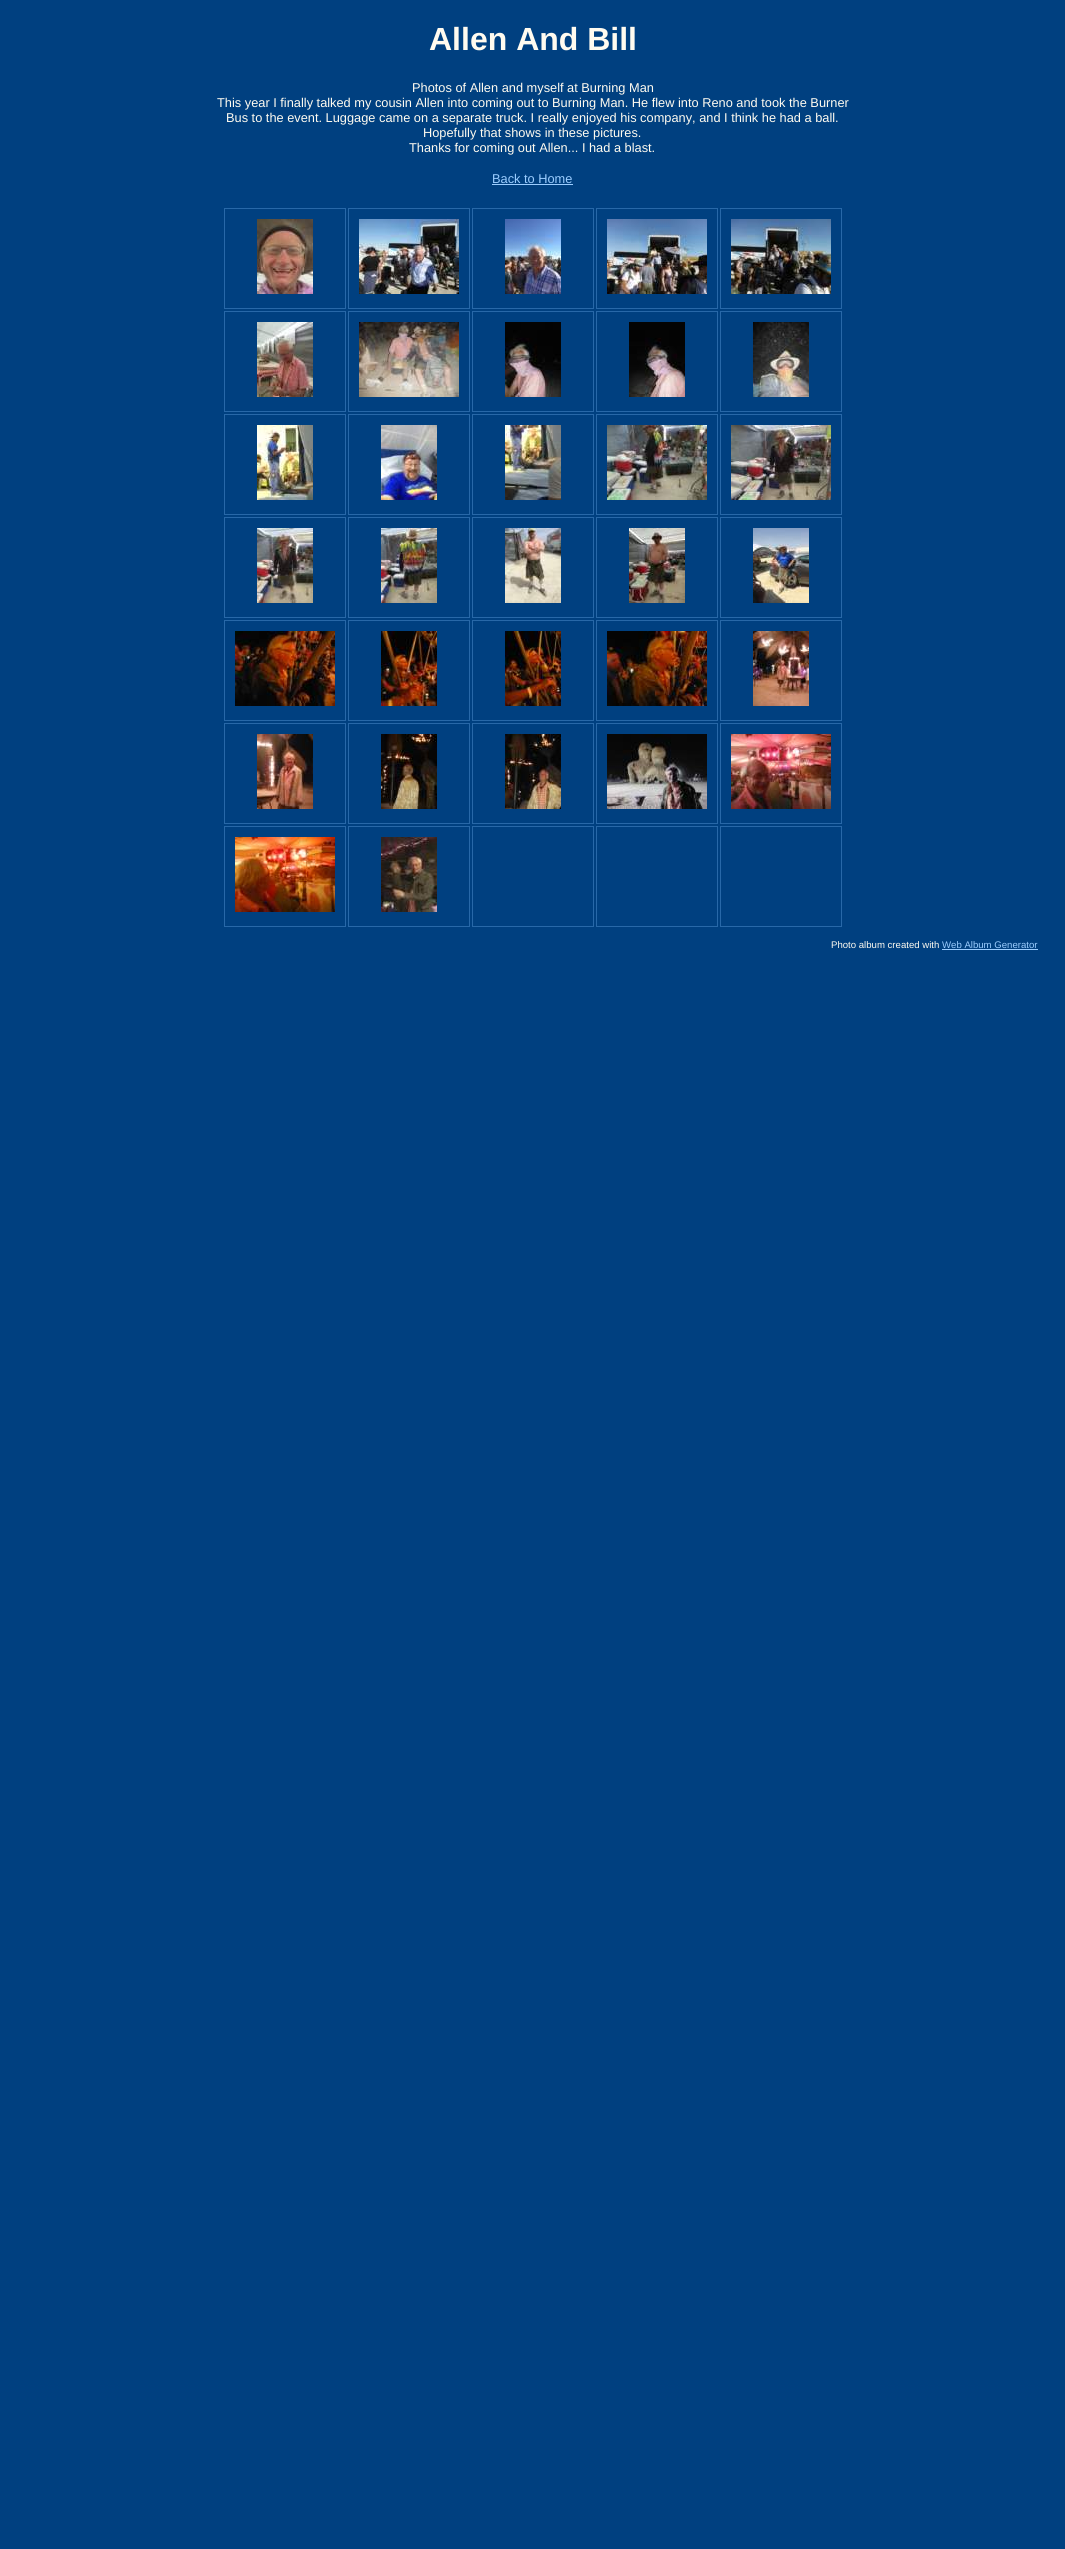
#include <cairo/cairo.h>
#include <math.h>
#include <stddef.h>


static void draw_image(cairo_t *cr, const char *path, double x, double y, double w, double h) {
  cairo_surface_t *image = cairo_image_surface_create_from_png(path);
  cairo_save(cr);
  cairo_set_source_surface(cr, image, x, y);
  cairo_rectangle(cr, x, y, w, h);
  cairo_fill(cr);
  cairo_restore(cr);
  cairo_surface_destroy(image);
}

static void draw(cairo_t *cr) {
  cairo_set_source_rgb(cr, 0, 64 / 255.0, 128 / 255.0);
  cairo_paint(cr);
  cairo_set_source_rgb(cr, 155 / 255.0, 205 / 255.0, 1);
  cairo_rectangle(cr, 492, 184, 81, 1);
  cairo_fill(cr);
  cairo_rectangle(cr, 224.5, 208.5, 121, 100);
  cairo_set_source_rgb(cr, 40 / 255.0, 104 / 255.0, 168 / 255.0);
  cairo_set_line_width(cr, 1);
  cairo_stroke(cr);
  draw_image(cr, "images/1.png", 257, 219, 56, 75);
  cairo_rectangle(cr, 348.5, 208.5, 121, 100);
  cairo_stroke(cr);
  draw_image(cr, "images/2.png", 359, 219, 100, 75);
  cairo_rectangle(cr, 472.5, 208.5, 121, 100);
  cairo_stroke(cr);
  draw_image(cr, "images/3.png", 505, 219, 56, 75);
  cairo_rectangle(cr, 596.5, 208.5, 121, 100);
  cairo_stroke(cr);
  draw_image(cr, "images/4.png", 607, 219, 100, 75);
  cairo_rectangle(cr, 720.5, 208.5, 121, 100);
  cairo_stroke(cr);
  draw_image(cr, "images/5.png", 731, 219, 100, 75);
  cairo_rectangle(cr, 224.5, 311.5, 121, 100);
  cairo_stroke(cr);
  draw_image(cr, "images/6.png", 257, 322, 56, 75);
  cairo_rectangle(cr, 348.5, 311.5, 121, 100);
  cairo_stroke(cr);
  draw_image(cr, "images/7.png", 359, 322, 100, 75);
  cairo_rectangle(cr, 472.5, 311.5, 121, 100);
  cairo_stroke(cr);
  draw_image(cr, "images/8.png", 505, 322, 56, 75);
  cairo_rectangle(cr, 596.5, 311.5, 121, 100);
  cairo_stroke(cr);
  draw_image(cr, "images/9.png", 629, 322, 56, 75);
  cairo_rectangle(cr, 720.5, 311.5, 121, 100);
  cairo_stroke(cr);
  draw_image(cr, "images/10.png", 753, 322, 56, 75);
  cairo_rectangle(cr, 224.5, 414.5, 121, 100);
  cairo_stroke(cr);
  draw_image(cr, "images/11.png", 257, 425, 56, 75);
  cairo_rectangle(cr, 348.5, 414.5, 121, 100);
  cairo_stroke(cr);
  draw_image(cr, "images/12.png", 381, 425, 56, 75);
  cairo_rectangle(cr, 472.5, 414.5, 121, 100);
  cairo_stroke(cr);
  draw_image(cr, "images/13.png", 505, 425, 56, 75);
  cairo_rectangle(cr, 596.5, 414.5, 121, 100);
  cairo_stroke(cr);
  draw_image(cr, "images/14.png", 607, 425, 100, 75);
  cairo_rectangle(cr, 720.5, 414.5, 121, 100);
  cairo_stroke(cr);
  draw_image(cr, "images/15.png", 731, 425, 100, 75);
  cairo_rectangle(cr, 224.5, 517.5, 121, 100);
  cairo_stroke(cr);
  draw_image(cr, "images/16.png", 257, 528, 56, 75);
  cairo_rectangle(cr, 348.5, 517.5, 121, 100);
  cairo_stroke(cr);
  draw_image(cr, "images/17.png", 381, 528, 56, 75);
  cairo_rectangle(cr, 472.5, 517.5, 121, 100);
  cairo_stroke(cr);
  draw_image(cr, "images/18.png", 505, 528, 56, 75);
  cairo_rectangle(cr, 596.5, 517.5, 121, 100);
  cairo_stroke(cr);
  draw_image(cr, "images/19.png", 629, 528, 56, 75);
  cairo_rectangle(cr, 720.5, 517.5, 121, 100);
  cairo_stroke(cr);
  draw_image(cr, "images/20.png", 753, 528, 56, 75);
  cairo_rectangle(cr, 224.5, 620.5, 121, 100);
  cairo_stroke(cr);
  draw_image(cr, "images/21.png", 235, 631, 100, 75);
  cairo_rectangle(cr, 348.5, 620.5, 121, 100);
  cairo_stroke(cr);
  draw_image(cr, "images/22.png", 381, 631, 56, 75);
  cairo_rectangle(cr, 472.5, 620.5, 121, 100);
  cairo_stroke(cr);
  draw_image(cr, "images/23.png", 505, 631, 56, 75);
  cairo_rectangle(cr, 596.5, 620.5, 121, 100);
  cairo_stroke(cr);
  draw_image(cr, "images/24.png", 607, 631, 100, 75);
  cairo_rectangle(cr, 720.5, 620.5, 121, 100);
  cairo_stroke(cr);
  draw_image(cr, "images/25.png", 753, 631, 56, 75);
  cairo_rectangle(cr, 224.5, 723.5, 121, 100);
  cairo_stroke(cr);
  draw_image(cr, "images/26.png", 257, 734, 56, 75);
  cairo_rectangle(cr, 348.5, 723.5, 121, 100);
  cairo_stroke(cr);
  draw_image(cr, "images/27.png", 381, 734, 56, 75);
  cairo_rectangle(cr, 472.5, 723.5, 121, 100);
  cairo_stroke(cr);
  draw_image(cr, "images/28.png", 505, 734, 56, 75);
  cairo_rectangle(cr, 596.5, 723.5, 121, 100);
  cairo_stroke(cr);
  draw_image(cr, "images/29.png", 607, 734, 100, 75);
  cairo_rectangle(cr, 720.5, 723.5, 121, 100);
  cairo_stroke(cr);
  draw_image(cr, "images/30.png", 731, 734, 100, 75);
  cairo_rectangle(cr, 224.5, 826.5, 121, 100);
  cairo_stroke(cr);
  draw_image(cr, "images/31.png", 235, 837, 100, 75);
  cairo_rectangle(cr, 348.5, 826.5, 121, 100);
  cairo_stroke(cr);
  draw_image(cr, "images/32.png", 381, 837, 56, 75);
  cairo_rectangle(cr, 472.5, 826.5, 121, 100);
  cairo_stroke(cr);
  cairo_rectangle(cr, 596.5, 826.5, 121, 100);
  cairo_stroke(cr);
  cairo_rectangle(cr, 720.5, 826.5, 121, 100);
  cairo_stroke(cr);
  cairo_set_source_rgb(cr, 155 / 255.0, 205 / 255.0, 1);
  cairo_rectangle(cr, 942, 949, 96, 1);
  cairo_fill(cr);
  cairo_select_font_face(cr, "Liberation Sans", CAIRO_FONT_SLANT_NORMAL, CAIRO_FONT_WEIGHT_BOLD);
  cairo_set_font_size(cr, 32);
  cairo_set_source_rgb(cr, 1, 251 / 255.0, 240 / 255.0);
  cairo_move_to(cr, 429, 50);
  cairo_show_text(cr, "Allen And Bill");
  cairo_select_font_face(cr, "Liberation Sans", CAIRO_FONT_SLANT_NORMAL, CAIRO_FONT_WEIGHT_NORMAL);
  cairo_set_font_size(cr, 12.8);
  cairo_move_to(cr, 412, 92);
  cairo_show_text(cr, "Photos of Allen and myself at Burning Man");
  cairo_move_to(cr, 217, 107);
  cairo_show_text(cr, "This year I finally talked my cousin Allen into coming out to Burning Man. He flew into Reno and took the Burner");
  cairo_move_to(cr, 226, 122);
  cairo_show_text(cr, "Bus to the event. Luggage came on a separate truck. I really enjoyed his company, and I think he had a ball.");
  cairo_move_to(cr, 423, 137);
  cairo_show_text(cr, "Hopefully that shows in these pictures.");
  cairo_move_to(cr, 409, 152);
  cairo_show_text(cr, "Thanks for coming out Allen... I had a blast.");
  cairo_set_source_rgb(cr, 155 / 255.0, 205 / 255.0, 1);
  cairo_move_to(cr, 492, 183);
  cairo_show_text(cr, "Back to Home");
  cairo_set_font_size(cr, 9.6);
  cairo_set_source_rgb(cr, 1, 251 / 255.0, 240 / 255.0);
  cairo_move_to(cr, 831, 948);
  cairo_show_text(cr, "Photo album created with");
  cairo_set_source_rgb(cr, 155 / 255.0, 205 / 255.0, 1);
  cairo_move_to(cr, 942, 948);
  cairo_show_text(cr, "Web Album Generator");
}

int main(void) {
  cairo_surface_t *surface = cairo_image_surface_create(CAIRO_FORMAT_RGB24, 1065, 2549);
  cairo_t *cr = cairo_create(surface);
  cairo_font_options_t *options = cairo_font_options_create();
  cairo_font_options_set_hint_metrics(options, CAIRO_HINT_METRICS_OFF);
  cairo_font_options_set_hint_style(options, CAIRO_HINT_STYLE_NONE);
  cairo_set_font_options(cr, options);
  cairo_set_miter_limit(cr, 4);
  draw(cr);
  cairo_surface_write_to_png(surface, "out.png");
  cairo_font_options_destroy(options);
  cairo_destroy(cr);
  cairo_surface_destroy(surface);
  return 0;
}
